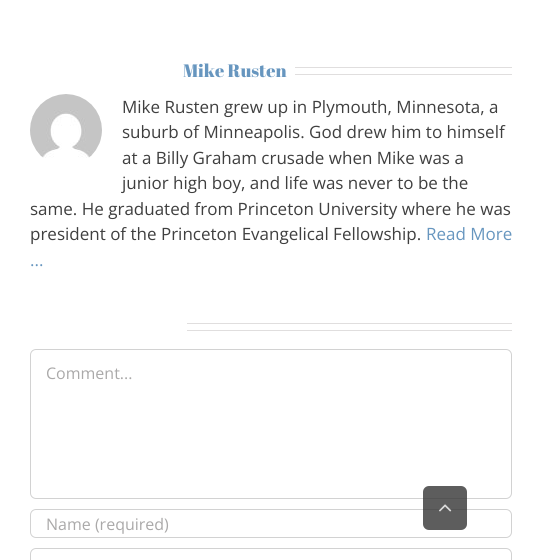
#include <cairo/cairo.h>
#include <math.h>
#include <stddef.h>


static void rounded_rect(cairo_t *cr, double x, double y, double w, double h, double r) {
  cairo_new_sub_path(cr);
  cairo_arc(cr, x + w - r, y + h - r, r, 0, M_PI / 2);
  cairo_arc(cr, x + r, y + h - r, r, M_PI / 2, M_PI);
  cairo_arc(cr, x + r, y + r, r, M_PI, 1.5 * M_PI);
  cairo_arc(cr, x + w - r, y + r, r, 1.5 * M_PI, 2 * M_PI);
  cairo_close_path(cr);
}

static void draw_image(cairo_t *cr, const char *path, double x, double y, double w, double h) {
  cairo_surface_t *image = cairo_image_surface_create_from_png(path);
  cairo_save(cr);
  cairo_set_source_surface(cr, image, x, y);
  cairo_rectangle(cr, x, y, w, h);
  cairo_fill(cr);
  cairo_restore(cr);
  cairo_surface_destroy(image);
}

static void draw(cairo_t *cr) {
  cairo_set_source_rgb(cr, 1, 1, 1);
  cairo_paint(cr);
  cairo_set_source_rgb(cr, 224 / 255.0, 222 / 255.0, 222 / 255.0);
  cairo_rectangle(cr, 295, 67, 217, 1);
  cairo_fill(cr);
  cairo_rectangle(cr, 295, 74, 217, 1);
  cairo_fill(cr);
  draw_image(cr, "images/1.png", 30, 94, 72, 64);
  cairo_rectangle(cr, 187, 323, 325, 1);
  cairo_fill(cr);
  cairo_rectangle(cr, 187, 330, 325, 1);
  cairo_fill(cr);
  rounded_rect(cr, 30.5, 349.5, 481, 149, 5.5);
  cairo_set_source_rgb(cr, 210 / 255.0, 210 / 255.0, 210 / 255.0);
  cairo_set_line_width(cr, 1);
  cairo_stroke(cr);
  rounded_rect(cr, 30.5, 509.5, 481, 28, 5.5);
  cairo_stroke(cr);
  rounded_rect(cr, 30.5, 548.5, 481, 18, 5.5);
  cairo_stroke(cr);
  cairo_set_source_rgba(cr, 51 / 255.0, 51 / 255.0, 51 / 255.0, 0.79);
  rounded_rect(cr, 423, 486, 44, 44, 6);
  cairo_fill(cr);
  draw_image(cr, "images/2.png", 439, 504, 13, 8);
  cairo_select_font_face(cr, "Abril Fatface", CAIRO_FONT_SLANT_NORMAL, CAIRO_FONT_WEIGHT_NORMAL);
  cairo_set_font_size(cr, 18);
  cairo_set_source_rgb(cr, 103 / 255.0, 150 / 255.0, 191 / 255.0);
  cairo_move_to(cr, 183, 77);
  cairo_show_text(cr, "Mike Rusten");
  cairo_select_font_face(cr, "Open Sans", CAIRO_FONT_SLANT_NORMAL, CAIRO_FONT_WEIGHT_NORMAL);
  cairo_set_font_size(cr, 17);
  cairo_set_source_rgb(cr, 63 / 255.0, 63 / 255.0, 63 / 255.0);
  cairo_move_to(cr, 122, 113);
  cairo_show_text(cr, "Mike Rusten grew up in Plymouth, Minnesota, a");
  cairo_move_to(cr, 122, 138);
  cairo_show_text(cr, "suburb of Minneapolis. God drew him to himself");
  cairo_move_to(cr, 122, 164);
  cairo_show_text(cr, "at a Billy Graham crusade when Mike was a");
  cairo_move_to(cr, 122, 189);
  cairo_show_text(cr, "junior high boy, and life was never to be the");
  cairo_move_to(cr, 30, 215);
  cairo_show_text(cr, "same. He graduated from Princeton University where he was");
  cairo_move_to(cr, 30, 240);
  cairo_show_text(cr, "president of the Princeton Evangelical Fellowship.");
  cairo_set_source_rgb(cr, 103 / 255.0, 150 / 255.0, 191 / 255.0);
  cairo_move_to(cr, 426, 240);
  cairo_show_text(cr, "Read More");
  cairo_move_to(cr, 30, 266);
  cairo_show_text(cr, "...");
  cairo_set_font_size(cr, 16);
  cairo_set_source_rgb(cr, 170 / 255.0, 169 / 255.0, 169 / 255.0);
  cairo_move_to(cr, 46, 379);
  cairo_show_text(cr, "Comment...");
  cairo_move_to(cr, 46, 530);
  cairo_show_text(cr, "Name (required)");
}

int main(void) {
  cairo_surface_t *surface = cairo_image_surface_create(CAIRO_FORMAT_RGB24, 542, 560);
  cairo_t *cr = cairo_create(surface);
  cairo_font_options_t *options = cairo_font_options_create();
  cairo_font_options_set_hint_metrics(options, CAIRO_HINT_METRICS_OFF);
  cairo_font_options_set_hint_style(options, CAIRO_HINT_STYLE_NONE);
  cairo_set_font_options(cr, options);
  cairo_set_miter_limit(cr, 4);
  draw(cr);
  cairo_surface_write_to_png(surface, "out.png");
  cairo_font_options_destroy(options);
  cairo_destroy(cr);
  cairo_surface_destroy(surface);
  return 0;
}
